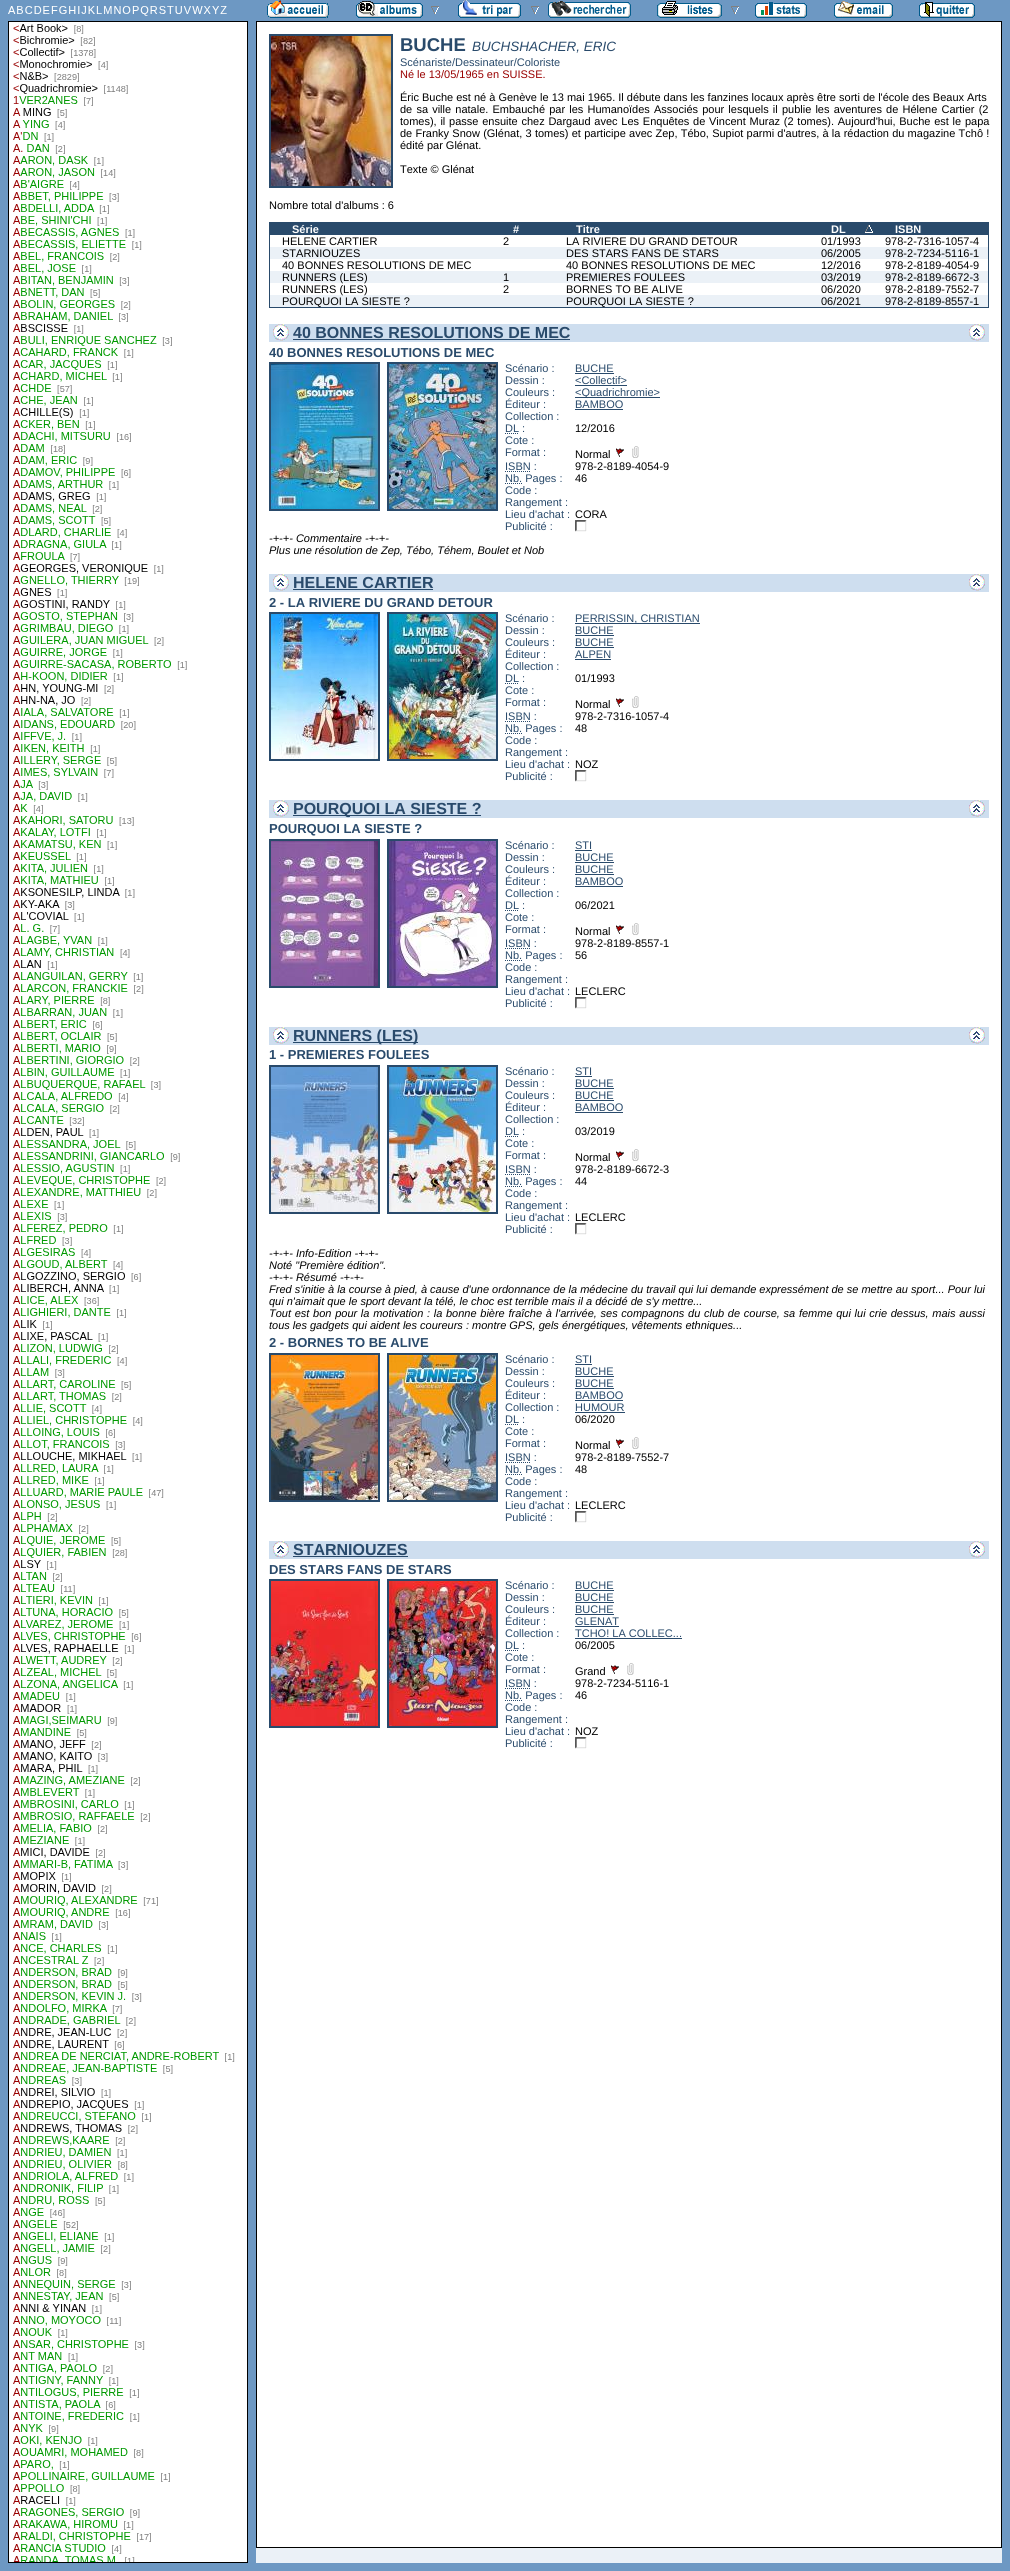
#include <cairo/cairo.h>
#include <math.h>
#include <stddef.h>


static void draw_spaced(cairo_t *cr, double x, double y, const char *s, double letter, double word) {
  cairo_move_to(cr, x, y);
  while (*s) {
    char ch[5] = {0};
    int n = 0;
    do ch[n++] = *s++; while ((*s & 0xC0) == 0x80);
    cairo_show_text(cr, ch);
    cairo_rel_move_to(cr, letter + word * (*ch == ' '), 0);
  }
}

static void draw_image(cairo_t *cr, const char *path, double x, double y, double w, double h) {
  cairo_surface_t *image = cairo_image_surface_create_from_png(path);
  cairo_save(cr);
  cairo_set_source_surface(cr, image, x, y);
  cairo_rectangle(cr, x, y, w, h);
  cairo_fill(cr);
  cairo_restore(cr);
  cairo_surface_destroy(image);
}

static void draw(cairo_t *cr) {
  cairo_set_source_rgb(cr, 109 / 255.0, 152 / 255.0, 195 / 255.0);
  cairo_paint(cr);
  draw_image(cr, "images/1.png", 8, 6, 240, 2557);
  draw_image(cr, "images/2.png", 267, 0, 62, 18);
  draw_image(cr, "images/3.png", 431, 6, 8, 8);
  draw_image(cr, "images/4.png", 356, 1, 67, 17);
  draw_image(cr, "images/3.png", 531, 6, 8, 8);
  draw_image(cr, "images/5.png", 458, 0, 63, 18);
  draw_image(cr, "images/6.png", 548, 1, 83, 17);
  draw_image(cr, "images/3.png", 731, 6, 8, 8);
  draw_image(cr, "images/7.png", 657, 1, 65, 17);
  draw_image(cr, "images/8.png", 755, 2, 52, 16);
  draw_image(cr, "images/9.png", 834, 1, 59, 17);
  draw_image(cr, "images/10.png", 919, 2, 56, 16);
  cairo_set_source_rgb(cr, 1, 1, 1);
  cairo_rectangle(cr, 256.5, 21.5, 745, 2526);
  cairo_fill_preserve(cr);
  cairo_set_source_rgb(cr, 0, 0, 0);
  cairo_set_line_width(cr, 1);
  cairo_stroke(cr);
  cairo_rectangle(cr, 270, 35, 122, 152);
  cairo_set_source_rgb(cr, 41 / 255.0, 74 / 255.0, 107 / 255.0);
  cairo_set_line_width(cr, 2);
  cairo_stroke(cr);
  draw_image(cr, "images/11.png", 271, 36, 120, 150);
  cairo_rectangle(cr, 269.5, 222.5, 719, 85);
  cairo_set_line_width(cr, 1);
  cairo_stroke(cr);
  cairo_rectangle(cr, 270, 223, 718, 12);
  cairo_fill(cr);
  draw_image(cr, "images/12.png", 865, 225, 8, 8);
  cairo_set_source_rgb(cr, 235 / 255.0, 241 / 255.0, 247 / 255.0);
  cairo_rectangle(cr, 270, 247, 718, 12);
  cairo_fill(cr);
  cairo_rectangle(cr, 270, 271, 718, 12);
  cairo_fill(cr);
  cairo_rectangle(cr, 270, 295, 718, 12);
  cairo_fill(cr);
  cairo_set_source_rgb(cr, 206 / 255.0, 222 / 255.0, 239 / 255.0);
  cairo_rectangle(cr, 269, 324, 720, 18);
  cairo_fill(cr);
  draw_image(cr, "images/13.png", 273, 324, 16, 17);
  draw_image(cr, "images/13.png", 969, 324, 16, 17);
  cairo_set_source_rgb(cr, 41 / 255.0, 74 / 255.0, 107 / 255.0);
  cairo_rectangle(cr, 293, 339, 277, 1);
  cairo_fill(cr);
  cairo_rectangle(cr, 270, 363, 109, 147);
  cairo_set_line_width(cr, 2);
  cairo_stroke(cr);
  draw_image(cr, "images/14.png", 271, 364, 107, 145);
  cairo_rectangle(cr, 388, 363, 109, 147);
  cairo_stroke(cr);
  draw_image(cr, "images/15.png", 389, 364, 107, 145);
  cairo_rectangle(cr, 575, 373, 39, 1);
  cairo_fill(cr);
  cairo_rectangle(cr, 575, 385, 52, 1);
  cairo_fill(cr);
  cairo_rectangle(cr, 575, 397, 85, 1);
  cairo_fill(cr);
  cairo_rectangle(cr, 575, 409, 48, 1);
  cairo_fill(cr);
  cairo_new_path(cr);
  cairo_move_to(cr, 505, 433.5);
  cairo_line_to(cr, 519, 433.5);
  cairo_set_line_width(cr, 1);
  cairo_set_dash(cr, (double[]){1, 1}, 2, 0);
  cairo_stroke(cr);
  draw_image(cr, "images/16.png", 616, 448, 8, 9);
  draw_image(cr, "images/17.png", 632, 446, 7, 12);
  cairo_new_path(cr);
  cairo_move_to(cr, 505, 471.5);
  cairo_line_to(cr, 530.5, 471.5);
  cairo_stroke(cr);
  cairo_new_path(cr);
  cairo_move_to(cr, 505, 483.5);
  cairo_line_to(cr, 522, 483.5);
  cairo_stroke(cr);
  draw_image(cr, "images/18.png", 575, 520, 12, 12);
  cairo_set_source_rgb(cr, 206 / 255.0, 222 / 255.0, 239 / 255.0);
  cairo_rectangle(cr, 269, 574, 720, 18);
  cairo_fill(cr);
  draw_image(cr, "images/13.png", 273, 574, 16, 17);
  draw_image(cr, "images/13.png", 969, 574, 16, 17);
  cairo_set_source_rgb(cr, 41 / 255.0, 74 / 255.0, 107 / 255.0);
  cairo_rectangle(cr, 293, 589, 140, 1);
  cairo_fill(cr);
  cairo_rectangle(cr, 270, 613, 109, 147);
  cairo_set_line_width(cr, 2);
  cairo_set_dash(cr, NULL, 0, 0);
  cairo_stroke(cr);
  draw_image(cr, "images/19.png", 271, 614, 107, 145);
  cairo_rectangle(cr, 388, 613, 109, 147);
  cairo_stroke(cr);
  draw_image(cr, "images/20.png", 389, 614, 107, 145);
  cairo_rectangle(cr, 575, 623, 125, 1);
  cairo_fill(cr);
  cairo_rectangle(cr, 575, 635, 39, 1);
  cairo_fill(cr);
  cairo_rectangle(cr, 575, 647, 39, 1);
  cairo_fill(cr);
  cairo_rectangle(cr, 575, 659, 36, 1);
  cairo_fill(cr);
  cairo_new_path(cr);
  cairo_move_to(cr, 505, 683.5);
  cairo_line_to(cr, 519, 683.5);
  cairo_set_line_width(cr, 1);
  cairo_set_dash(cr, (double[]){1, 1}, 2, 0);
  cairo_stroke(cr);
  draw_image(cr, "images/16.png", 616, 698, 8, 9);
  draw_image(cr, "images/17.png", 632, 696, 7, 12);
  cairo_new_path(cr);
  cairo_move_to(cr, 505, 721.5);
  cairo_line_to(cr, 530.5, 721.5);
  cairo_stroke(cr);
  cairo_new_path(cr);
  cairo_move_to(cr, 505, 733.5);
  cairo_line_to(cr, 522, 733.5);
  cairo_stroke(cr);
  draw_image(cr, "images/18.png", 575, 770, 12, 12);
  cairo_set_source_rgb(cr, 206 / 255.0, 222 / 255.0, 239 / 255.0);
  cairo_rectangle(cr, 269, 800, 720, 18);
  cairo_fill(cr);
  draw_image(cr, "images/13.png", 273, 800, 16, 17);
  draw_image(cr, "images/13.png", 969, 800, 16, 17);
  cairo_set_source_rgb(cr, 41 / 255.0, 74 / 255.0, 107 / 255.0);
  cairo_rectangle(cr, 293, 815, 188, 1);
  cairo_fill(cr);
  cairo_rectangle(cr, 270, 840, 109, 147);
  cairo_set_line_width(cr, 2);
  cairo_set_dash(cr, NULL, 0, 0);
  cairo_stroke(cr);
  draw_image(cr, "images/21.png", 271, 841, 107, 145);
  cairo_rectangle(cr, 388, 840, 109, 147);
  cairo_stroke(cr);
  draw_image(cr, "images/22.png", 389, 841, 107, 145);
  cairo_rectangle(cr, 575, 850, 17, 1);
  cairo_fill(cr);
  cairo_rectangle(cr, 575, 862, 39, 1);
  cairo_fill(cr);
  cairo_rectangle(cr, 575, 874, 39, 1);
  cairo_fill(cr);
  cairo_rectangle(cr, 575, 886, 48, 1);
  cairo_fill(cr);
  cairo_new_path(cr);
  cairo_move_to(cr, 505, 910.5);
  cairo_line_to(cr, 519, 910.5);
  cairo_set_line_width(cr, 1);
  cairo_set_dash(cr, (double[]){1, 1}, 2, 0);
  cairo_stroke(cr);
  draw_image(cr, "images/16.png", 616, 925, 8, 9);
  draw_image(cr, "images/17.png", 632, 923, 7, 12);
  cairo_new_path(cr);
  cairo_move_to(cr, 505, 948.5);
  cairo_line_to(cr, 530.5, 948.5);
  cairo_stroke(cr);
  cairo_new_path(cr);
  cairo_move_to(cr, 505, 960.5);
  cairo_line_to(cr, 522, 960.5);
  cairo_stroke(cr);
  draw_image(cr, "images/18.png", 575, 997, 12, 12);
  cairo_set_source_rgb(cr, 206 / 255.0, 222 / 255.0, 239 / 255.0);
  cairo_rectangle(cr, 269, 1027, 720, 18);
  cairo_fill(cr);
  draw_image(cr, "images/13.png", 273, 1027, 16, 17);
  draw_image(cr, "images/13.png", 969, 1027, 16, 17);
  cairo_set_source_rgb(cr, 41 / 255.0, 74 / 255.0, 107 / 255.0);
  cairo_rectangle(cr, 293, 1042, 125, 1);
  cairo_fill(cr);
  cairo_rectangle(cr, 270, 1066, 109, 147);
  cairo_set_line_width(cr, 2);
  cairo_set_dash(cr, NULL, 0, 0);
  cairo_stroke(cr);
  draw_image(cr, "images/23.png", 271, 1067, 107, 145);
  cairo_rectangle(cr, 388, 1066, 109, 147);
  cairo_stroke(cr);
  draw_image(cr, "images/24.png", 389, 1067, 107, 145);
  cairo_rectangle(cr, 575, 1076, 17, 1);
  cairo_fill(cr);
  cairo_rectangle(cr, 575, 1088, 39, 1);
  cairo_fill(cr);
  cairo_rectangle(cr, 575, 1100, 39, 1);
  cairo_fill(cr);
  cairo_rectangle(cr, 575, 1112, 48, 1);
  cairo_fill(cr);
  cairo_new_path(cr);
  cairo_move_to(cr, 505, 1136.5);
  cairo_line_to(cr, 519, 1136.5);
  cairo_set_line_width(cr, 1);
  cairo_set_dash(cr, (double[]){1, 1}, 2, 0);
  cairo_stroke(cr);
  draw_image(cr, "images/16.png", 616, 1151, 8, 9);
  draw_image(cr, "images/17.png", 632, 1149, 7, 12);
  cairo_new_path(cr);
  cairo_move_to(cr, 505, 1174.5);
  cairo_line_to(cr, 530.5, 1174.5);
  cairo_stroke(cr);
  cairo_new_path(cr);
  cairo_move_to(cr, 505, 1186.5);
  cairo_line_to(cr, 522, 1186.5);
  cairo_stroke(cr);
  draw_image(cr, "images/18.png", 575, 1223, 12, 12);
  cairo_rectangle(cr, 270, 1354, 109, 147);
  cairo_set_line_width(cr, 2);
  cairo_set_dash(cr, NULL, 0, 0);
  cairo_stroke(cr);
  draw_image(cr, "images/25.png", 271, 1355, 107, 145);
  cairo_rectangle(cr, 388, 1354, 109, 147);
  cairo_stroke(cr);
  draw_image(cr, "images/26.png", 389, 1355, 107, 145);
  cairo_rectangle(cr, 575, 1364, 17, 1);
  cairo_fill(cr);
  cairo_rectangle(cr, 575, 1376, 39, 1);
  cairo_fill(cr);
  cairo_rectangle(cr, 575, 1388, 39, 1);
  cairo_fill(cr);
  cairo_rectangle(cr, 575, 1400, 48, 1);
  cairo_fill(cr);
  cairo_rectangle(cr, 575, 1412, 50, 1);
  cairo_fill(cr);
  cairo_new_path(cr);
  cairo_move_to(cr, 505, 1424.5);
  cairo_line_to(cr, 519, 1424.5);
  cairo_set_line_width(cr, 1);
  cairo_set_dash(cr, (double[]){1, 1}, 2, 0);
  cairo_stroke(cr);
  draw_image(cr, "images/16.png", 616, 1439, 8, 9);
  draw_image(cr, "images/17.png", 632, 1437, 7, 12);
  cairo_new_path(cr);
  cairo_move_to(cr, 505, 1462.5);
  cairo_line_to(cr, 530.5, 1462.5);
  cairo_stroke(cr);
  cairo_new_path(cr);
  cairo_move_to(cr, 505, 1474.5);
  cairo_line_to(cr, 522, 1474.5);
  cairo_stroke(cr);
  draw_image(cr, "images/18.png", 575, 1511, 12, 12);
  cairo_set_source_rgb(cr, 206 / 255.0, 222 / 255.0, 239 / 255.0);
  cairo_rectangle(cr, 269, 1541, 720, 18);
  cairo_fill(cr);
  draw_image(cr, "images/13.png", 273, 1541, 16, 17);
  draw_image(cr, "images/13.png", 969, 1541, 16, 17);
  cairo_set_source_rgb(cr, 41 / 255.0, 74 / 255.0, 107 / 255.0);
  cairo_rectangle(cr, 293, 1556, 115, 1);
  cairo_fill(cr);
  cairo_rectangle(cr, 270, 1580, 109, 147);
  cairo_set_line_width(cr, 2);
  cairo_set_dash(cr, NULL, 0, 0);
  cairo_stroke(cr);
  draw_image(cr, "images/27.png", 271, 1581, 107, 145);
  cairo_rectangle(cr, 388, 1580, 109, 147);
  cairo_stroke(cr);
  draw_image(cr, "images/28.png", 389, 1581, 107, 145);
  cairo_rectangle(cr, 575, 1590, 39, 1);
  cairo_fill(cr);
  cairo_rectangle(cr, 575, 1602, 39, 1);
  cairo_fill(cr);
  cairo_rectangle(cr, 575, 1614, 39, 1);
  cairo_fill(cr);
  cairo_rectangle(cr, 575, 1626, 44, 1);
  cairo_fill(cr);
  cairo_rectangle(cr, 575, 1638, 107, 1);
  cairo_fill(cr);
  cairo_new_path(cr);
  cairo_move_to(cr, 505, 1650.5);
  cairo_line_to(cr, 519, 1650.5);
  cairo_set_line_width(cr, 1);
  cairo_set_dash(cr, (double[]){1, 1}, 2, 0);
  cairo_stroke(cr);
  draw_image(cr, "images/16.png", 611, 1665, 8, 9);
  draw_image(cr, "images/17.png", 627, 1663, 7, 12);
  cairo_new_path(cr);
  cairo_move_to(cr, 505, 1688.5);
  cairo_line_to(cr, 530.5, 1688.5);
  cairo_stroke(cr);
  cairo_new_path(cr);
  cairo_move_to(cr, 505, 1700.5);
  cairo_line_to(cr, 522, 1700.5);
  cairo_stroke(cr);
  draw_image(cr, "images/18.png", 575, 1737, 12, 12);
  cairo_set_source_rgb(cr, 235 / 255.0, 241 / 255.0, 247 / 255.0);
  cairo_rectangle(cr, 256, 2548, 746, 15);
  cairo_fill(cr);
  cairo_select_font_face(cr, "Liberation Sans", CAIRO_FONT_SLANT_NORMAL, CAIRO_FONT_WEIGHT_BOLD);
  cairo_set_font_size(cr, 18.5);
  cairo_set_source_rgb(cr, 41 / 255.0, 74 / 255.0, 107 / 255.0);
  cairo_move_to(cr, 400, 51);
  cairo_show_text(cr, "BUCHE");
  cairo_select_font_face(cr, "Liberation Sans", CAIRO_FONT_SLANT_ITALIC, CAIRO_FONT_WEIGHT_NORMAL);
  cairo_set_font_size(cr, 13.5);
  cairo_move_to(cr, 472, 51);
  cairo_show_text(cr, "BUCHSHACHER, ERIC");
  cairo_select_font_face(cr, "Liberation Sans", CAIRO_FONT_SLANT_NORMAL, CAIRO_FONT_WEIGHT_NORMAL);
  cairo_set_font_size(cr, 11);
  cairo_move_to(cr, 400, 66);
  cairo_show_text(cr, "Scénariste/Dessinateur/Coloriste");
  cairo_set_source_rgb(cr, 153 / 255.0, 0, 0);
  cairo_move_to(cr, 400, 78);
  cairo_show_text(cr, "Né le 13/05/1965 en SUISSE.");
  cairo_set_source_rgb(cr, 0, 0, 0);
  cairo_move_to(cr, 400, 101);
  cairo_show_text(cr, "Éric Buche est né à Genève le 13 mai 1965. Il débute dans les fanzines locaux après être sorti de l'école des Beaux Arts");
  draw_spaced(cr, 400, 113, "de sa ville natale. Embauché par les Humanoïdes Associés pour lesquels il publie les aventures de Hélene Cartier (2", 0, 1.1);
  draw_spaced(cr, 400, 125, "tomes), il passe ensuite chez Dargaud avec Les Enquêtes de Vincent Muraz (2 tomes). Aujourd'hui, Buche est le papa", 0, 0.7);
  draw_spaced(cr, 400, 137, "de Franky Snow (Glénat, 3 tomes) et participe avec Zep, Tébo, Supiot parmi d'autres, à la rédaction du magazine Tchô !", 0, 0.2);
  cairo_move_to(cr, 400, 149);
  cairo_show_text(cr, "édité par Glénat.");
  cairo_move_to(cr, 400, 173);
  cairo_show_text(cr, "Texte © Glénat");
  cairo_move_to(cr, 269, 209);
  cairo_show_text(cr, "Nombre total d'albums : 6");
  cairo_select_font_face(cr, "Liberation Sans", CAIRO_FONT_SLANT_NORMAL, CAIRO_FONT_WEIGHT_BOLD);
  cairo_set_source_rgb(cr, 1, 1, 1);
  cairo_move_to(cr, 292, 233);
  cairo_show_text(cr, "Série");
  cairo_move_to(cr, 513, 233);
  cairo_show_text(cr, "#");
  cairo_move_to(cr, 576, 233);
  cairo_show_text(cr, "Titre");
  cairo_move_to(cr, 831, 233);
  cairo_show_text(cr, "DL");
  cairo_move_to(cr, 895, 233);
  cairo_show_text(cr, "ISBN");
  cairo_select_font_face(cr, "Liberation Sans", CAIRO_FONT_SLANT_NORMAL, CAIRO_FONT_WEIGHT_NORMAL);
  cairo_set_source_rgb(cr, 0, 0, 0);
  cairo_move_to(cr, 282, 245);
  cairo_show_text(cr, "HELENE CARTIER");
  cairo_move_to(cr, 503, 245);
  cairo_show_text(cr, "2");
  cairo_move_to(cr, 566, 245);
  cairo_show_text(cr, "LA RIVIERE DU GRAND DETOUR");
  cairo_move_to(cr, 821, 245);
  cairo_show_text(cr, "01/1993");
  cairo_move_to(cr, 885, 245);
  cairo_show_text(cr, "978-2-7316-1057-4");
  cairo_move_to(cr, 282, 257);
  cairo_show_text(cr, "STARNIOUZES");
  cairo_move_to(cr, 566, 257);
  cairo_show_text(cr, "DES STARS FANS DE STARS");
  cairo_move_to(cr, 821, 257);
  cairo_show_text(cr, "06/2005");
  cairo_move_to(cr, 885, 257);
  cairo_show_text(cr, "978-2-7234-5116-1");
  cairo_move_to(cr, 282, 269);
  cairo_show_text(cr, "40 BONNES RESOLUTIONS DE MEC");
  cairo_move_to(cr, 566, 269);
  cairo_show_text(cr, "40 BONNES RESOLUTIONS DE MEC");
  cairo_move_to(cr, 821, 269);
  cairo_show_text(cr, "12/2016");
  cairo_move_to(cr, 885, 269);
  cairo_show_text(cr, "978-2-8189-4054-9");
  cairo_move_to(cr, 282, 281);
  cairo_show_text(cr, "RUNNERS (LES)");
  cairo_move_to(cr, 503, 281);
  cairo_show_text(cr, "1");
  cairo_move_to(cr, 566, 281);
  cairo_show_text(cr, "PREMIERES FOULEES");
  cairo_move_to(cr, 821, 281);
  cairo_show_text(cr, "03/2019");
  cairo_move_to(cr, 885, 281);
  cairo_show_text(cr, "978-2-8189-6672-3");
  cairo_move_to(cr, 282, 293);
  cairo_show_text(cr, "RUNNERS (LES)");
  cairo_move_to(cr, 503, 293);
  cairo_show_text(cr, "2");
  cairo_move_to(cr, 566, 293);
  cairo_show_text(cr, "BORNES TO BE ALIVE");
  cairo_move_to(cr, 821, 293);
  cairo_show_text(cr, "06/2020");
  cairo_move_to(cr, 885, 293);
  cairo_show_text(cr, "978-2-8189-7552-7");
  cairo_move_to(cr, 282, 305);
  cairo_show_text(cr, "POURQUOI LA SIESTE ?");
  cairo_move_to(cr, 566, 305);
  cairo_show_text(cr, "POURQUOI LA SIESTE ?");
  cairo_move_to(cr, 821, 305);
  cairo_show_text(cr, "06/2021");
  cairo_move_to(cr, 885, 305);
  cairo_show_text(cr, "978-2-8189-8557-1");
  cairo_select_font_face(cr, "Liberation Sans", CAIRO_FONT_SLANT_NORMAL, CAIRO_FONT_WEIGHT_BOLD);
  cairo_set_font_size(cr, 16);
  cairo_set_source_rgb(cr, 41 / 255.0, 74 / 255.0, 107 / 255.0);
  cairo_move_to(cr, 293, 338);
  cairo_show_text(cr, "40 BONNES RESOLUTIONS DE MEC");
  cairo_set_font_size(cr, 13);
  cairo_move_to(cr, 269, 357);
  cairo_show_text(cr, "40 BONNES RESOLUTIONS DE MEC");
  cairo_select_font_face(cr, "Liberation Sans", CAIRO_FONT_SLANT_NORMAL, CAIRO_FONT_WEIGHT_NORMAL);
  cairo_set_font_size(cr, 11);
  cairo_move_to(cr, 505, 372);
  cairo_show_text(cr, "Scénario :");
  cairo_move_to(cr, 575, 372);
  cairo_show_text(cr, "BUCHE");
  cairo_move_to(cr, 505, 384);
  cairo_show_text(cr, "Dessin :");
  cairo_move_to(cr, 575, 384);
  cairo_show_text(cr, "<Collectif>");
  cairo_move_to(cr, 505, 396);
  cairo_show_text(cr, "Couleurs :");
  cairo_move_to(cr, 575, 396);
  cairo_show_text(cr, "<Quadrichromie>");
  cairo_move_to(cr, 505, 408);
  cairo_show_text(cr, "Éditeur :");
  cairo_move_to(cr, 575, 408);
  cairo_show_text(cr, "BAMBOO");
  cairo_move_to(cr, 505, 420);
  cairo_show_text(cr, "Collection :");
  cairo_move_to(cr, 505, 432);
  cairo_show_text(cr, "DL :");
  cairo_set_source_rgb(cr, 0, 0, 0);
  cairo_move_to(cr, 575, 432);
  cairo_show_text(cr, "12/2016");
  cairo_set_source_rgb(cr, 41 / 255.0, 74 / 255.0, 107 / 255.0);
  cairo_move_to(cr, 505, 444);
  cairo_show_text(cr, "Cote :");
  cairo_move_to(cr, 505, 456);
  cairo_show_text(cr, "Format :");
  cairo_set_source_rgb(cr, 0, 0, 0);
  cairo_move_to(cr, 575, 458);
  cairo_show_text(cr, "Normal");
  cairo_set_source_rgb(cr, 41 / 255.0, 74 / 255.0, 107 / 255.0);
  cairo_move_to(cr, 505, 470);
  cairo_show_text(cr, "ISBN :");
  cairo_set_source_rgb(cr, 0, 0, 0);
  cairo_move_to(cr, 575, 470);
  cairo_show_text(cr, "978-2-8189-4054-9");
  cairo_set_source_rgb(cr, 41 / 255.0, 74 / 255.0, 107 / 255.0);
  cairo_move_to(cr, 505, 482);
  cairo_show_text(cr, "Nb. Pages :");
  cairo_set_source_rgb(cr, 0, 0, 0);
  cairo_move_to(cr, 575, 482);
  cairo_show_text(cr, "46");
  cairo_set_source_rgb(cr, 41 / 255.0, 74 / 255.0, 107 / 255.0);
  cairo_move_to(cr, 505, 494);
  cairo_show_text(cr, "Code :");
  cairo_move_to(cr, 505, 506);
  cairo_show_text(cr, "Rangement :");
  cairo_move_to(cr, 505, 518);
  cairo_show_text(cr, "Lieu d'achat :");
  cairo_set_source_rgb(cr, 0, 0, 0);
  cairo_move_to(cr, 575, 518);
  cairo_show_text(cr, "CORA");
  cairo_set_source_rgb(cr, 41 / 255.0, 74 / 255.0, 107 / 255.0);
  cairo_move_to(cr, 505, 530);
  cairo_show_text(cr, "Publicité :");
  cairo_select_font_face(cr, "Liberation Sans", CAIRO_FONT_SLANT_ITALIC, CAIRO_FONT_WEIGHT_NORMAL);
  cairo_set_source_rgb(cr, 0, 0, 0);
  cairo_move_to(cr, 269, 542);
  cairo_show_text(cr, "-+-+- Commentaire -+-+-");
  cairo_move_to(cr, 269, 554);
  cairo_show_text(cr, "Plus une résolution de Zep, Tébo, Téhem, Boulet et Nob");
  cairo_select_font_face(cr, "Liberation Sans", CAIRO_FONT_SLANT_NORMAL, CAIRO_FONT_WEIGHT_BOLD);
  cairo_set_font_size(cr, 16);
  cairo_set_source_rgb(cr, 41 / 255.0, 74 / 255.0, 107 / 255.0);
  cairo_move_to(cr, 293, 588);
  cairo_show_text(cr, "HELENE CARTIER");
  cairo_set_font_size(cr, 13);
  cairo_move_to(cr, 269, 607);
  cairo_show_text(cr, "2 - LA RIVIERE DU GRAND DETOUR");
  cairo_select_font_face(cr, "Liberation Sans", CAIRO_FONT_SLANT_NORMAL, CAIRO_FONT_WEIGHT_NORMAL);
  cairo_set_font_size(cr, 11);
  cairo_move_to(cr, 505, 622);
  cairo_show_text(cr, "Scénario :");
  cairo_move_to(cr, 575, 622);
  cairo_show_text(cr, "PERRISSIN, CHRISTIAN");
  cairo_move_to(cr, 505, 634);
  cairo_show_text(cr, "Dessin :");
  cairo_move_to(cr, 575, 634);
  cairo_show_text(cr, "BUCHE");
  cairo_move_to(cr, 505, 646);
  cairo_show_text(cr, "Couleurs :");
  cairo_move_to(cr, 575, 646);
  cairo_show_text(cr, "BUCHE");
  cairo_move_to(cr, 505, 658);
  cairo_show_text(cr, "Éditeur :");
  cairo_move_to(cr, 575, 658);
  cairo_show_text(cr, "ALPEN");
  cairo_move_to(cr, 505, 670);
  cairo_show_text(cr, "Collection :");
  cairo_move_to(cr, 505, 682);
  cairo_show_text(cr, "DL :");
  cairo_set_source_rgb(cr, 0, 0, 0);
  cairo_move_to(cr, 575, 682);
  cairo_show_text(cr, "01/1993");
  cairo_set_source_rgb(cr, 41 / 255.0, 74 / 255.0, 107 / 255.0);
  cairo_move_to(cr, 505, 694);
  cairo_show_text(cr, "Cote :");
  cairo_move_to(cr, 505, 706);
  cairo_show_text(cr, "Format :");
  cairo_set_source_rgb(cr, 0, 0, 0);
  cairo_move_to(cr, 575, 708);
  cairo_show_text(cr, "Normal");
  cairo_set_source_rgb(cr, 41 / 255.0, 74 / 255.0, 107 / 255.0);
  cairo_move_to(cr, 505, 720);
  cairo_show_text(cr, "ISBN :");
  cairo_set_source_rgb(cr, 0, 0, 0);
  cairo_move_to(cr, 575, 720);
  cairo_show_text(cr, "978-2-7316-1057-4");
  cairo_set_source_rgb(cr, 41 / 255.0, 74 / 255.0, 107 / 255.0);
  cairo_move_to(cr, 505, 732);
  cairo_show_text(cr, "Nb. Pages :");
  cairo_set_source_rgb(cr, 0, 0, 0);
  cairo_move_to(cr, 575, 732);
  cairo_show_text(cr, "48");
  cairo_set_source_rgb(cr, 41 / 255.0, 74 / 255.0, 107 / 255.0);
  cairo_move_to(cr, 505, 744);
  cairo_show_text(cr, "Code :");
  cairo_move_to(cr, 505, 756);
  cairo_show_text(cr, "Rangement :");
  cairo_move_to(cr, 505, 768);
  cairo_show_text(cr, "Lieu d'achat :");
  cairo_set_source_rgb(cr, 0, 0, 0);
  cairo_move_to(cr, 575, 768);
  cairo_show_text(cr, "NOZ");
  cairo_set_source_rgb(cr, 41 / 255.0, 74 / 255.0, 107 / 255.0);
  cairo_move_to(cr, 505, 780);
  cairo_show_text(cr, "Publicité :");
  cairo_select_font_face(cr, "Liberation Sans", CAIRO_FONT_SLANT_NORMAL, CAIRO_FONT_WEIGHT_BOLD);
  cairo_set_font_size(cr, 16);
  cairo_move_to(cr, 293, 814);
  cairo_show_text(cr, "POURQUOI LA SIESTE ?");
  cairo_set_font_size(cr, 13);
  cairo_move_to(cr, 269, 833);
  cairo_show_text(cr, "POURQUOI LA SIESTE ?");
  cairo_select_font_face(cr, "Liberation Sans", CAIRO_FONT_SLANT_NORMAL, CAIRO_FONT_WEIGHT_NORMAL);
  cairo_set_font_size(cr, 11);
  cairo_move_to(cr, 505, 849);
  cairo_show_text(cr, "Scénario :");
  cairo_move_to(cr, 575, 849);
  cairo_show_text(cr, "STI");
  cairo_move_to(cr, 505, 861);
  cairo_show_text(cr, "Dessin :");
  cairo_move_to(cr, 575, 861);
  cairo_show_text(cr, "BUCHE");
  cairo_move_to(cr, 505, 873);
  cairo_show_text(cr, "Couleurs :");
  cairo_move_to(cr, 575, 873);
  cairo_show_text(cr, "BUCHE");
  cairo_move_to(cr, 505, 885);
  cairo_show_text(cr, "Éditeur :");
  cairo_move_to(cr, 575, 885);
  cairo_show_text(cr, "BAMBOO");
  cairo_move_to(cr, 505, 897);
  cairo_show_text(cr, "Collection :");
  cairo_move_to(cr, 505, 909);
  cairo_show_text(cr, "DL :");
  cairo_set_source_rgb(cr, 0, 0, 0);
  cairo_move_to(cr, 575, 909);
  cairo_show_text(cr, "06/2021");
  cairo_set_source_rgb(cr, 41 / 255.0, 74 / 255.0, 107 / 255.0);
  cairo_move_to(cr, 505, 921);
  cairo_show_text(cr, "Cote :");
  cairo_move_to(cr, 505, 933);
  cairo_show_text(cr, "Format :");
  cairo_set_source_rgb(cr, 0, 0, 0);
  cairo_move_to(cr, 575, 935);
  cairo_show_text(cr, "Normal");
  cairo_set_source_rgb(cr, 41 / 255.0, 74 / 255.0, 107 / 255.0);
  cairo_move_to(cr, 505, 947);
  cairo_show_text(cr, "ISBN :");
  cairo_set_source_rgb(cr, 0, 0, 0);
  cairo_move_to(cr, 575, 947);
  cairo_show_text(cr, "978-2-8189-8557-1");
  cairo_set_source_rgb(cr, 41 / 255.0, 74 / 255.0, 107 / 255.0);
  cairo_move_to(cr, 505, 959);
  cairo_show_text(cr, "Nb. Pages :");
  cairo_set_source_rgb(cr, 0, 0, 0);
  cairo_move_to(cr, 575, 959);
  cairo_show_text(cr, "56");
  cairo_set_source_rgb(cr, 41 / 255.0, 74 / 255.0, 107 / 255.0);
  cairo_move_to(cr, 505, 971);
  cairo_show_text(cr, "Code :");
  cairo_move_to(cr, 505, 983);
  cairo_show_text(cr, "Rangement :");
  cairo_move_to(cr, 505, 995);
  cairo_show_text(cr, "Lieu d'achat :");
  cairo_set_source_rgb(cr, 0, 0, 0);
  cairo_move_to(cr, 575, 995);
  cairo_show_text(cr, "LECLERC");
  cairo_set_source_rgb(cr, 41 / 255.0, 74 / 255.0, 107 / 255.0);
  cairo_move_to(cr, 505, 1007);
  cairo_show_text(cr, "Publicité :");
  cairo_select_font_face(cr, "Liberation Sans", CAIRO_FONT_SLANT_NORMAL, CAIRO_FONT_WEIGHT_BOLD);
  cairo_set_font_size(cr, 16);
  cairo_move_to(cr, 293, 1041);
  cairo_show_text(cr, "RUNNERS (LES)");
  cairo_set_font_size(cr, 13);
  cairo_move_to(cr, 269, 1059);
  cairo_show_text(cr, "1 - PREMIERES FOULEES");
  cairo_select_font_face(cr, "Liberation Sans", CAIRO_FONT_SLANT_NORMAL, CAIRO_FONT_WEIGHT_NORMAL);
  cairo_set_font_size(cr, 11);
  cairo_move_to(cr, 505, 1075);
  cairo_show_text(cr, "Scénario :");
  cairo_move_to(cr, 575, 1075);
  cairo_show_text(cr, "STI");
  cairo_move_to(cr, 505, 1087);
  cairo_show_text(cr, "Dessin :");
  cairo_move_to(cr, 575, 1087);
  cairo_show_text(cr, "BUCHE");
  cairo_move_to(cr, 505, 1099);
  cairo_show_text(cr, "Couleurs :");
  cairo_move_to(cr, 575, 1099);
  cairo_show_text(cr, "BUCHE");
  cairo_move_to(cr, 505, 1111);
  cairo_show_text(cr, "Éditeur :");
  cairo_move_to(cr, 575, 1111);
  cairo_show_text(cr, "BAMBOO");
  cairo_move_to(cr, 505, 1123);
  cairo_show_text(cr, "Collection :");
  cairo_move_to(cr, 505, 1135);
  cairo_show_text(cr, "DL :");
  cairo_set_source_rgb(cr, 0, 0, 0);
  cairo_move_to(cr, 575, 1135);
  cairo_show_text(cr, "03/2019");
  cairo_set_source_rgb(cr, 41 / 255.0, 74 / 255.0, 107 / 255.0);
  cairo_move_to(cr, 505, 1147);
  cairo_show_text(cr, "Cote :");
  cairo_move_to(cr, 505, 1159);
  cairo_show_text(cr, "Format :");
  cairo_set_source_rgb(cr, 0, 0, 0);
  cairo_move_to(cr, 575, 1161);
  cairo_show_text(cr, "Normal");
  cairo_set_source_rgb(cr, 41 / 255.0, 74 / 255.0, 107 / 255.0);
  cairo_move_to(cr, 505, 1173);
  cairo_show_text(cr, "ISBN :");
  cairo_set_source_rgb(cr, 0, 0, 0);
  cairo_move_to(cr, 575, 1173);
  cairo_show_text(cr, "978-2-8189-6672-3");
  cairo_set_source_rgb(cr, 41 / 255.0, 74 / 255.0, 107 / 255.0);
  cairo_move_to(cr, 505, 1185);
  cairo_show_text(cr, "Nb. Pages :");
  cairo_set_source_rgb(cr, 0, 0, 0);
  cairo_move_to(cr, 575, 1185);
  cairo_show_text(cr, "44");
  cairo_set_source_rgb(cr, 41 / 255.0, 74 / 255.0, 107 / 255.0);
  cairo_move_to(cr, 505, 1197);
  cairo_show_text(cr, "Code :");
  cairo_move_to(cr, 505, 1209);
  cairo_show_text(cr, "Rangement :");
  cairo_move_to(cr, 505, 1221);
  cairo_show_text(cr, "Lieu d'achat :");
  cairo_set_source_rgb(cr, 0, 0, 0);
  cairo_move_to(cr, 575, 1221);
  cairo_show_text(cr, "LECLERC");
  cairo_set_source_rgb(cr, 41 / 255.0, 74 / 255.0, 107 / 255.0);
  cairo_move_to(cr, 505, 1233);
  cairo_show_text(cr, "Publicité :");
  cairo_select_font_face(cr, "Liberation Sans", CAIRO_FONT_SLANT_ITALIC, CAIRO_FONT_WEIGHT_NORMAL);
  cairo_set_source_rgb(cr, 0, 0, 0);
  cairo_move_to(cr, 269, 1257);
  cairo_show_text(cr, "-+-+- Info-Edition -+-+-");
  cairo_move_to(cr, 269, 1269);
  cairo_show_text(cr, "Noté \"Première édition\".");
  cairo_move_to(cr, 269, 1281);
  cairo_show_text(cr, "-+-+- Résumé -+-+-");
  cairo_move_to(cr, 269, 1293);
  cairo_show_text(cr, "Fred s'initie à la course à pied, à cause d'une ordonnance de la médecine du travail qui lui demande expressément de se mettre au sport... Pour lui");
  cairo_move_to(cr, 269, 1305);
  cairo_show_text(cr, "qui n'aimait que le sport devant la télé, le choc est terrible mais il a décidé de s'y mettre...");
  draw_spaced(cr, 269, 1317, "Tout est bon pour la motivation : la bonne bière fraîche à l'arrivée, ses compagnons du club de course, sa femme qui lui crie dessus, mais aussi", 0, 0.65);
  cairo_move_to(cr, 269, 1329);
  cairo_show_text(cr, "tous les gadgets qui aident les coureurs : montre GPS, gels énergétiques, vêtements ethniques...");
  cairo_select_font_face(cr, "Liberation Sans", CAIRO_FONT_SLANT_NORMAL, CAIRO_FONT_WEIGHT_BOLD);
  cairo_set_font_size(cr, 13);
  cairo_set_source_rgb(cr, 41 / 255.0, 74 / 255.0, 107 / 255.0);
  cairo_move_to(cr, 269, 1347);
  cairo_show_text(cr, "2 - BORNES TO BE ALIVE");
  cairo_select_font_face(cr, "Liberation Sans", CAIRO_FONT_SLANT_NORMAL, CAIRO_FONT_WEIGHT_NORMAL);
  cairo_set_font_size(cr, 11);
  cairo_move_to(cr, 505, 1363);
  cairo_show_text(cr, "Scénario :");
  cairo_move_to(cr, 575, 1363);
  cairo_show_text(cr, "STI");
  cairo_move_to(cr, 505, 1375);
  cairo_show_text(cr, "Dessin :");
  cairo_move_to(cr, 575, 1375);
  cairo_show_text(cr, "BUCHE");
  cairo_move_to(cr, 505, 1387);
  cairo_show_text(cr, "Couleurs :");
  cairo_move_to(cr, 575, 1387);
  cairo_show_text(cr, "BUCHE");
  cairo_move_to(cr, 505, 1399);
  cairo_show_text(cr, "Éditeur :");
  cairo_move_to(cr, 575, 1399);
  cairo_show_text(cr, "BAMBOO");
  cairo_move_to(cr, 505, 1411);
  cairo_show_text(cr, "Collection :");
  cairo_move_to(cr, 575, 1411);
  cairo_show_text(cr, "HUMOUR");
  cairo_move_to(cr, 505, 1423);
  cairo_show_text(cr, "DL :");
  cairo_set_source_rgb(cr, 0, 0, 0);
  cairo_move_to(cr, 575, 1423);
  cairo_show_text(cr, "06/2020");
  cairo_set_source_rgb(cr, 41 / 255.0, 74 / 255.0, 107 / 255.0);
  cairo_move_to(cr, 505, 1435);
  cairo_show_text(cr, "Cote :");
  cairo_move_to(cr, 505, 1447);
  cairo_show_text(cr, "Format :");
  cairo_set_source_rgb(cr, 0, 0, 0);
  cairo_move_to(cr, 575, 1449);
  cairo_show_text(cr, "Normal");
  cairo_set_source_rgb(cr, 41 / 255.0, 74 / 255.0, 107 / 255.0);
  cairo_move_to(cr, 505, 1461);
  cairo_show_text(cr, "ISBN :");
  cairo_set_source_rgb(cr, 0, 0, 0);
  cairo_move_to(cr, 575, 1461);
  cairo_show_text(cr, "978-2-8189-7552-7");
  cairo_set_source_rgb(cr, 41 / 255.0, 74 / 255.0, 107 / 255.0);
  cairo_move_to(cr, 505, 1473);
  cairo_show_text(cr, "Nb. Pages :");
  cairo_set_source_rgb(cr, 0, 0, 0);
  cairo_move_to(cr, 575, 1473);
  cairo_show_text(cr, "48");
  cairo_set_source_rgb(cr, 41 / 255.0, 74 / 255.0, 107 / 255.0);
  cairo_move_to(cr, 505, 1485);
  cairo_show_text(cr, "Code :");
  cairo_move_to(cr, 505, 1497);
  cairo_show_text(cr, "Rangement :");
  cairo_move_to(cr, 505, 1509);
  cairo_show_text(cr, "Lieu d'achat :");
  cairo_set_source_rgb(cr, 0, 0, 0);
  cairo_move_to(cr, 575, 1509);
  cairo_show_text(cr, "LECLERC");
  cairo_set_source_rgb(cr, 41 / 255.0, 74 / 255.0, 107 / 255.0);
  cairo_move_to(cr, 505, 1521);
  cairo_show_text(cr, "Publicité :");
  cairo_select_font_face(cr, "Liberation Sans", CAIRO_FONT_SLANT_NORMAL, CAIRO_FONT_WEIGHT_BOLD);
  cairo_set_font_size(cr, 16);
  cairo_move_to(cr, 293, 1555);
  cairo_show_text(cr, "STARNIOUZES");
  cairo_set_font_size(cr, 13);
  cairo_move_to(cr, 269, 1574);
  cairo_show_text(cr, "DES STARS FANS DE STARS");
  cairo_select_font_face(cr, "Liberation Sans", CAIRO_FONT_SLANT_NORMAL, CAIRO_FONT_WEIGHT_NORMAL);
  cairo_set_font_size(cr, 11);
  cairo_move_to(cr, 505, 1589);
  cairo_show_text(cr, "Scénario :");
  cairo_move_to(cr, 575, 1589);
  cairo_show_text(cr, "BUCHE");
  cairo_move_to(cr, 505, 1601);
  cairo_show_text(cr, "Dessin :");
  cairo_move_to(cr, 575, 1601);
  cairo_show_text(cr, "BUCHE");
  cairo_move_to(cr, 505, 1613);
  cairo_show_text(cr, "Couleurs :");
  cairo_move_to(cr, 575, 1613);
  cairo_show_text(cr, "BUCHE");
  cairo_move_to(cr, 505, 1625);
  cairo_show_text(cr, "Éditeur :");
  cairo_move_to(cr, 575, 1625);
  cairo_show_text(cr, "GLENAT");
  cairo_move_to(cr, 505, 1637);
  cairo_show_text(cr, "Collection :");
  cairo_move_to(cr, 575, 1637);
  cairo_show_text(cr, "TCHO! LA COLLEC...");
  cairo_move_to(cr, 505, 1649);
  cairo_show_text(cr, "DL :");
  cairo_set_source_rgb(cr, 0, 0, 0);
  cairo_move_to(cr, 575, 1649);
  cairo_show_text(cr, "06/2005");
  cairo_set_source_rgb(cr, 41 / 255.0, 74 / 255.0, 107 / 255.0);
  cairo_move_to(cr, 505, 1661);
  cairo_show_text(cr, "Cote :");
  cairo_move_to(cr, 505, 1673);
  cairo_show_text(cr, "Format :");
  cairo_set_source_rgb(cr, 0, 0, 0);
  cairo_move_to(cr, 575, 1675);
  cairo_show_text(cr, "Grand");
  cairo_set_source_rgb(cr, 41 / 255.0, 74 / 255.0, 107 / 255.0);
  cairo_move_to(cr, 505, 1687);
  cairo_show_text(cr, "ISBN :");
  cairo_set_source_rgb(cr, 0, 0, 0);
  cairo_move_to(cr, 575, 1687);
  cairo_show_text(cr, "978-2-7234-5116-1");
  cairo_set_source_rgb(cr, 41 / 255.0, 74 / 255.0, 107 / 255.0);
  cairo_move_to(cr, 505, 1699);
  cairo_show_text(cr, "Nb. Pages :");
  cairo_set_source_rgb(cr, 0, 0, 0);
  cairo_move_to(cr, 575, 1699);
  cairo_show_text(cr, "46");
  cairo_set_source_rgb(cr, 41 / 255.0, 74 / 255.0, 107 / 255.0);
  cairo_move_to(cr, 505, 1711);
  cairo_show_text(cr, "Code :");
  cairo_move_to(cr, 505, 1723);
  cairo_show_text(cr, "Rangement :");
  cairo_move_to(cr, 505, 1735);
  cairo_show_text(cr, "Lieu d'achat :");
  cairo_set_source_rgb(cr, 0, 0, 0);
  cairo_move_to(cr, 575, 1735);
  cairo_show_text(cr, "NOZ");
  cairo_set_source_rgb(cr, 41 / 255.0, 74 / 255.0, 107 / 255.0);
  cairo_move_to(cr, 505, 1747);
  cairo_show_text(cr, "Publicité :");
}

int main(void) {
  cairo_surface_t *surface = cairo_image_surface_create(CAIRO_FORMAT_RGB24, 1010, 2571);
  cairo_t *cr = cairo_create(surface);
  cairo_font_options_t *options = cairo_font_options_create();
  cairo_font_options_set_hint_metrics(options, CAIRO_HINT_METRICS_OFF);
  cairo_font_options_set_hint_style(options, CAIRO_HINT_STYLE_NONE);
  cairo_set_font_options(cr, options);
  cairo_set_miter_limit(cr, 4);
  draw(cr);
  cairo_surface_write_to_png(surface, "out.png");
  cairo_font_options_destroy(options);
  cairo_destroy(cr);
  cairo_surface_destroy(surface);
  return 0;
}
